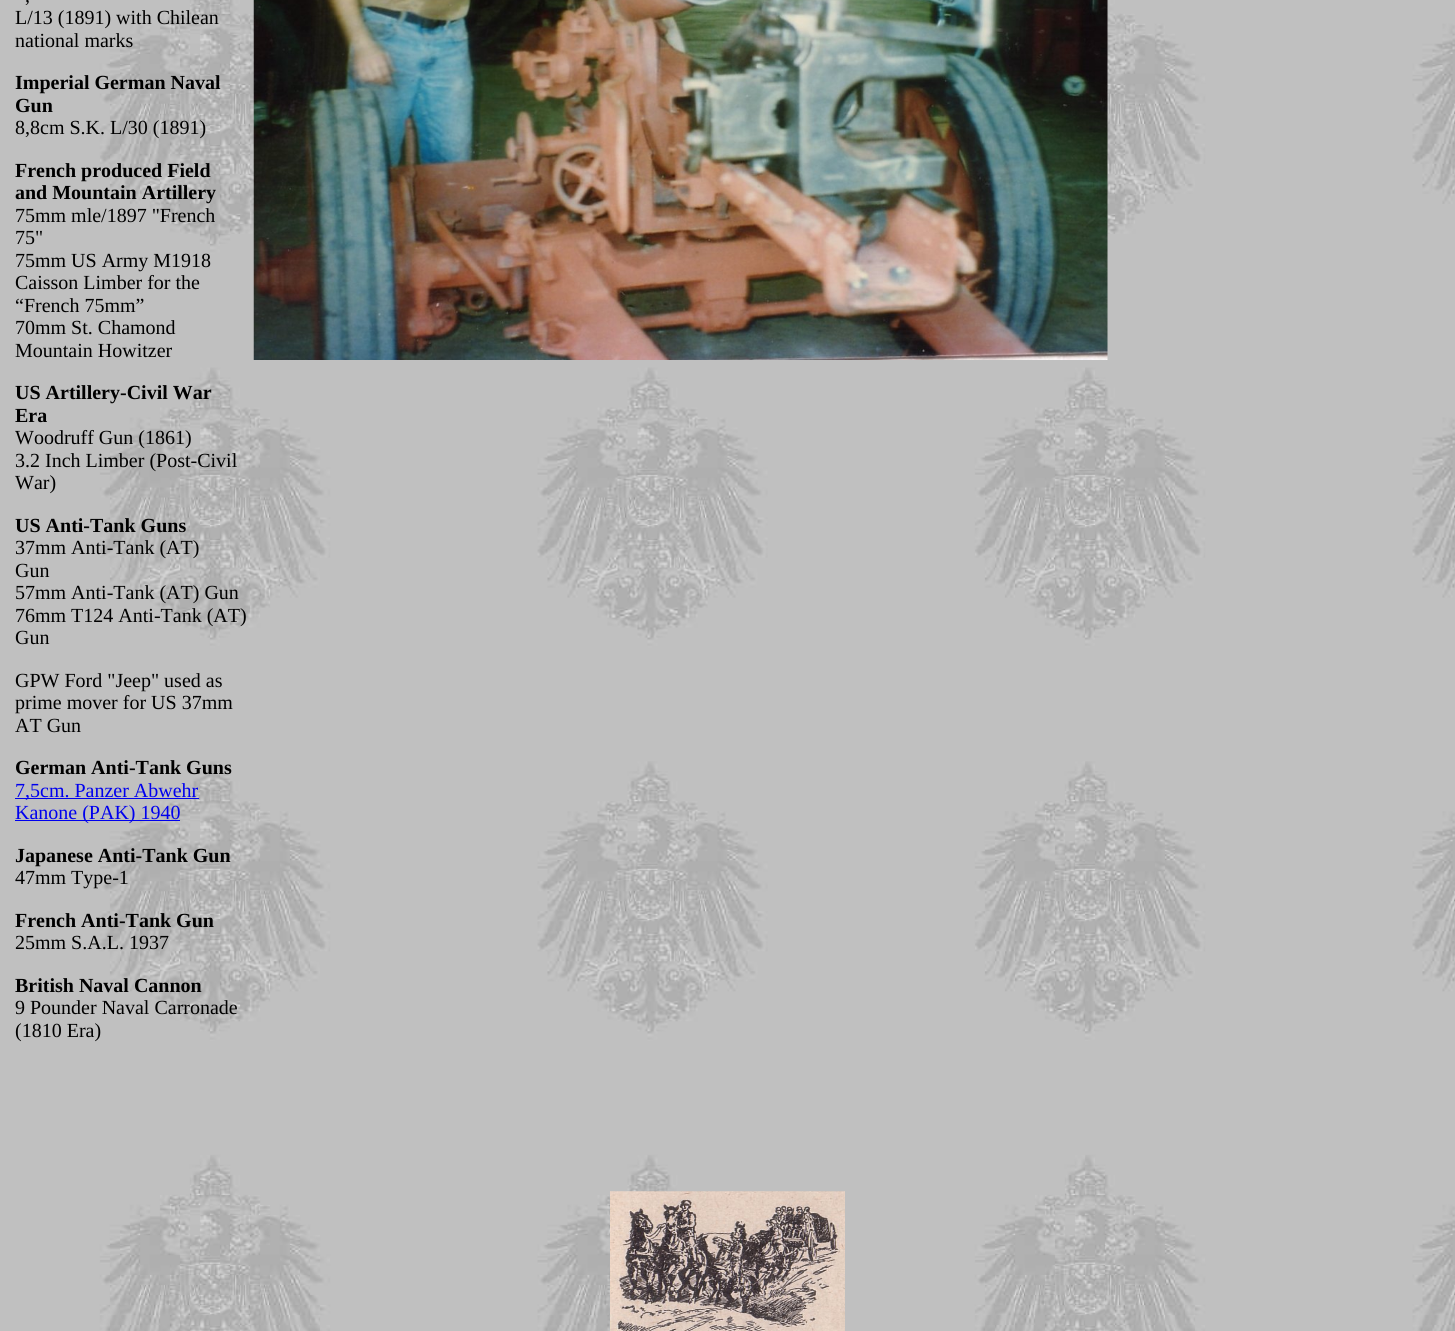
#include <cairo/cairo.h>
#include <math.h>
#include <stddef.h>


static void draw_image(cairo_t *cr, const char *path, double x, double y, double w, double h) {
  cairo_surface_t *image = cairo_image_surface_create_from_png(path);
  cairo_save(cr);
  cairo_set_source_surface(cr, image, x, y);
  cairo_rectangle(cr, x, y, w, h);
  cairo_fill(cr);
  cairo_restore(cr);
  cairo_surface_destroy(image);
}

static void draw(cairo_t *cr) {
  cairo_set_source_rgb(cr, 1, 1, 1);
  cairo_paint(cr);
  draw_image(cr, "images/1.png", 0, 0, 1455, 1331);
  cairo_set_source_rgb(cr, 0, 0, 238 / 255.0);
  cairo_rectangle(cr, 15, 798, 184, 1);
  cairo_fill(cr);
  cairo_rectangle(cr, 15, 820, 165, 1);
  cairo_fill(cr);
  draw_image(cr, "images/2.png", 253, 0, 855, 360);
  draw_image(cr, "images/3.png", 610, 1191, 235, 140);
  cairo_select_font_face(cr, "Liberation Serif", CAIRO_FONT_SLANT_NORMAL, CAIRO_FONT_WEIGHT_NORMAL);
  cairo_set_font_size(cr, 20);
  cairo_set_source_rgb(cr, 0, 0, 0);
  cairo_move_to(cr, 25, 2);
  cairo_show_text(cr, ",");
  cairo_move_to(cr, 15, 24);
  cairo_show_text(cr, "L/13 (1891) with Chilean");
  cairo_move_to(cr, 15, 47);
  cairo_show_text(cr, "national marks");
  cairo_select_font_face(cr, "Liberation Serif", CAIRO_FONT_SLANT_NORMAL, CAIRO_FONT_WEIGHT_BOLD);
  cairo_move_to(cr, 15, 89);
  cairo_show_text(cr, "Imperial German Naval");
  cairo_move_to(cr, 15, 112);
  cairo_show_text(cr, "Gun");
  cairo_select_font_face(cr, "Liberation Serif", CAIRO_FONT_SLANT_NORMAL, CAIRO_FONT_WEIGHT_NORMAL);
  cairo_move_to(cr, 15, 134);
  cairo_show_text(cr, "8,8cm S.K. L/30 (1891)");
  cairo_select_font_face(cr, "Liberation Serif", CAIRO_FONT_SLANT_NORMAL, CAIRO_FONT_WEIGHT_BOLD);
  cairo_move_to(cr, 15, 177);
  cairo_show_text(cr, "French produced Field");
  cairo_move_to(cr, 15, 199);
  cairo_show_text(cr, "and Mountain Artillery");
  cairo_select_font_face(cr, "Liberation Serif", CAIRO_FONT_SLANT_NORMAL, CAIRO_FONT_WEIGHT_NORMAL);
  cairo_move_to(cr, 15, 222);
  cairo_show_text(cr, "75mm mle/1897 \"French");
  cairo_move_to(cr, 15, 244);
  cairo_show_text(cr, "75\"");
  cairo_move_to(cr, 15, 267);
  cairo_show_text(cr, "75mm US Army M1918");
  cairo_move_to(cr, 15, 289);
  cairo_show_text(cr, "Caisson Limber for the");
  cairo_move_to(cr, 15, 312);
  cairo_show_text(cr, "“French 75mm”");
  cairo_move_to(cr, 15, 334);
  cairo_show_text(cr, "70mm St. Chamond");
  cairo_move_to(cr, 15, 357);
  cairo_show_text(cr, "Mountain Howitzer");
  cairo_select_font_face(cr, "Liberation Serif", CAIRO_FONT_SLANT_NORMAL, CAIRO_FONT_WEIGHT_BOLD);
  cairo_move_to(cr, 15, 399);
  cairo_show_text(cr, "US Artillery-Civil War");
  cairo_move_to(cr, 15, 422);
  cairo_show_text(cr, "Era");
  cairo_select_font_face(cr, "Liberation Serif", CAIRO_FONT_SLANT_NORMAL, CAIRO_FONT_WEIGHT_NORMAL);
  cairo_move_to(cr, 15, 444);
  cairo_show_text(cr, "Woodruff Gun (1861)");
  cairo_move_to(cr, 15, 467);
  cairo_show_text(cr, "3.2 Inch Limber (Post-Civil");
  cairo_move_to(cr, 15, 489);
  cairo_show_text(cr, "War)");
  cairo_select_font_face(cr, "Liberation Serif", CAIRO_FONT_SLANT_NORMAL, CAIRO_FONT_WEIGHT_BOLD);
  cairo_move_to(cr, 15, 532);
  cairo_show_text(cr, "US Anti-Tank Guns");
  cairo_select_font_face(cr, "Liberation Serif", CAIRO_FONT_SLANT_NORMAL, CAIRO_FONT_WEIGHT_NORMAL);
  cairo_move_to(cr, 15, 554);
  cairo_show_text(cr, "37mm Anti-Tank (AT)");
  cairo_move_to(cr, 15, 577);
  cairo_show_text(cr, "Gun");
  cairo_move_to(cr, 15, 599);
  cairo_show_text(cr, "57mm Anti-Tank (AT) Gun");
  cairo_move_to(cr, 15, 622);
  cairo_show_text(cr, "76mm T124 Anti-Tank (AT)");
  cairo_move_to(cr, 15, 644);
  cairo_show_text(cr, "Gun");
  cairo_move_to(cr, 15, 687);
  cairo_show_text(cr, "GPW Ford \"Jeep\" used as");
  cairo_move_to(cr, 15, 709);
  cairo_show_text(cr, "prime mover for US 37mm");
  cairo_move_to(cr, 15, 732);
  cairo_show_text(cr, "AT Gun");
  cairo_select_font_face(cr, "Liberation Serif", CAIRO_FONT_SLANT_NORMAL, CAIRO_FONT_WEIGHT_BOLD);
  cairo_move_to(cr, 15, 774);
  cairo_show_text(cr, "German Anti-Tank Guns");
  cairo_select_font_face(cr, "Liberation Serif", CAIRO_FONT_SLANT_NORMAL, CAIRO_FONT_WEIGHT_NORMAL);
  cairo_set_source_rgb(cr, 0, 0, 238 / 255.0);
  cairo_move_to(cr, 15, 797);
  cairo_show_text(cr, "7,5cm. Panzer Abwehr");
  cairo_move_to(cr, 15, 819);
  cairo_show_text(cr, "Kanone (PAK) 1940");
  cairo_select_font_face(cr, "Liberation Serif", CAIRO_FONT_SLANT_NORMAL, CAIRO_FONT_WEIGHT_BOLD);
  cairo_set_source_rgb(cr, 0, 0, 0);
  cairo_move_to(cr, 15, 862);
  cairo_show_text(cr, "Japanese Anti-Tank Gun");
  cairo_select_font_face(cr, "Liberation Serif", CAIRO_FONT_SLANT_NORMAL, CAIRO_FONT_WEIGHT_NORMAL);
  cairo_move_to(cr, 15, 884);
  cairo_show_text(cr, "47mm Type-1");
  cairo_select_font_face(cr, "Liberation Serif", CAIRO_FONT_SLANT_NORMAL, CAIRO_FONT_WEIGHT_BOLD);
  cairo_move_to(cr, 15, 927);
  cairo_show_text(cr, "French Anti-Tank Gun");
  cairo_select_font_face(cr, "Liberation Serif", CAIRO_FONT_SLANT_NORMAL, CAIRO_FONT_WEIGHT_NORMAL);
  cairo_move_to(cr, 15, 949);
  cairo_show_text(cr, "25mm S.A.L. 1937");
  cairo_select_font_face(cr, "Liberation Serif", CAIRO_FONT_SLANT_NORMAL, CAIRO_FONT_WEIGHT_BOLD);
  cairo_move_to(cr, 15, 992);
  cairo_show_text(cr, "British Naval Cannon");
  cairo_select_font_face(cr, "Liberation Serif", CAIRO_FONT_SLANT_NORMAL, CAIRO_FONT_WEIGHT_NORMAL);
  cairo_move_to(cr, 15, 1014);
  cairo_show_text(cr, "9 Pounder Naval Carronade");
  cairo_move_to(cr, 15, 1037);
  cairo_show_text(cr, "(1810 Era)");
}

int main(void) {
  cairo_surface_t *surface = cairo_image_surface_create(CAIRO_FORMAT_RGB24, 1455, 1331);
  cairo_t *cr = cairo_create(surface);
  cairo_font_options_t *options = cairo_font_options_create();
  cairo_font_options_set_hint_metrics(options, CAIRO_HINT_METRICS_OFF);
  cairo_font_options_set_hint_style(options, CAIRO_HINT_STYLE_NONE);
  cairo_set_font_options(cr, options);
  cairo_set_miter_limit(cr, 4);
  draw(cr);
  cairo_surface_write_to_png(surface, "out.png");
  cairo_font_options_destroy(options);
  cairo_destroy(cr);
  cairo_surface_destroy(surface);
  return 0;
}
